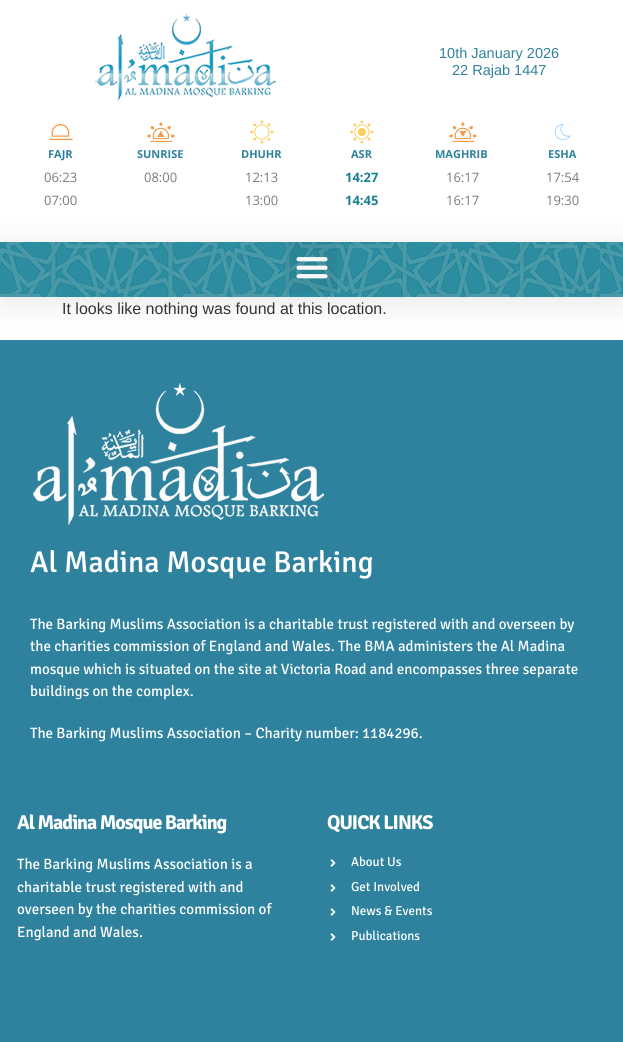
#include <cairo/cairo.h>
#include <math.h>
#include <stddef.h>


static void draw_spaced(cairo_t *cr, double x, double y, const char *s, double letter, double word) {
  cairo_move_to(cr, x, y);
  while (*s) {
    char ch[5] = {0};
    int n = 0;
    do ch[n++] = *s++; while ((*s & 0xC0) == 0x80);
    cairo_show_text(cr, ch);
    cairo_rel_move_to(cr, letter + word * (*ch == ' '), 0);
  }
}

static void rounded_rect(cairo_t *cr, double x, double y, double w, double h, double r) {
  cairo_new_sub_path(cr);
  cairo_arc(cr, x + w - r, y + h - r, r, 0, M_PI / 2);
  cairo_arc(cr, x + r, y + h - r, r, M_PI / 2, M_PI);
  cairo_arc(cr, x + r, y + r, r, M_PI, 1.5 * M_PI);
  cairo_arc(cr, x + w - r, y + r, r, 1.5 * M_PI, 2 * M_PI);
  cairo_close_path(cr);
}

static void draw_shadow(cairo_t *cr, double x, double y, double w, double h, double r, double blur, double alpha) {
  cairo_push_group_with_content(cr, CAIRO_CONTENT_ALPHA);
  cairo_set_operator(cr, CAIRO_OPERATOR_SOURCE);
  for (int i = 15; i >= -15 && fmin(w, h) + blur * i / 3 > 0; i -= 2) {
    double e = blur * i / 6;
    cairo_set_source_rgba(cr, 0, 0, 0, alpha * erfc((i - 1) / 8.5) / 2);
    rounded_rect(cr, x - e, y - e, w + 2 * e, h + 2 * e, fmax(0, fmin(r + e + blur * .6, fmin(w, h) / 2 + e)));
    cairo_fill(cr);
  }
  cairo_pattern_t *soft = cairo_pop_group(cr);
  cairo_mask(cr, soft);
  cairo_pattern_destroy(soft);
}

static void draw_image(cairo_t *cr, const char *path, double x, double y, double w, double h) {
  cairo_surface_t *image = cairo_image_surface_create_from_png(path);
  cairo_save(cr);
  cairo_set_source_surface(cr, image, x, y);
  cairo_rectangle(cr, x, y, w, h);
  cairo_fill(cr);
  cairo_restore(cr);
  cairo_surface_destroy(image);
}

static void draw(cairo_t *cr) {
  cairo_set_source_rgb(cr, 1, 1, 1);
  cairo_paint(cr);
  draw_image(cr, "images/1.png", 95, 12, 181, 89);
  draw_image(cr, "images/2.png", 48, 124, 25, 16);
  draw_image(cr, "images/3.png", 147, 122, 28, 20);
  draw_image(cr, "images/4.png", 250, 120, 24, 24);
  draw_image(cr, "images/5.png", 350, 120, 24, 24);
  draw_image(cr, "images/6.png", 449, 122, 28, 20);
  draw_image(cr, "images/7.png", 554, 123, 17, 18);
  cairo_set_source_rgb(cr, 0, 0, 0);
  draw_shadow(cr, 0, 247, 623, 55, 0, 15, 0.1);
  cairo_set_source_rgb(cr, 26 / 255.0, 129 / 255.0, 146 / 255.0);
  cairo_rectangle(cr, 0, 242, 623, 55);
  cairo_fill(cr);
  draw_image(cr, "images/8.png", 0, 242, 623, 55);
  cairo_set_source_rgba(cr, 0, 0, 0, 0.05);
  cairo_rectangle(cr, 286, 242, 51, 51);
  cairo_fill(cr);
  draw_image(cr, "images/9.png", 296, 257, 32, 22);
  cairo_set_source_rgb(cr, 46 / 255.0, 130 / 255.0, 158 / 255.0);
  cairo_rectangle(cr, 0, 340, 623, 702);
  cairo_fill(cr);
  draw_image(cr, "images/10.png", 33, 383, 291, 142);
  draw_image(cr, "images/11.png", 330, 859, 6, 8);
  draw_image(cr, "images/11.png", 330, 884, 6, 8);
  draw_image(cr, "images/11.png", 330, 908, 6, 8);
  draw_image(cr, "images/11.png", 330, 933, 6, 8);
  cairo_select_font_face(cr, "Liberation Sans", CAIRO_FONT_SLANT_NORMAL, CAIRO_FONT_WEIGHT_NORMAL);
  cairo_set_font_size(cr, 14.5);
  cairo_move_to(cr, 439, 58);
  cairo_show_text(cr, "10th January 2026");
  cairo_move_to(cr, 452, 75);
  cairo_show_text(cr, "22 Rajab 1447");
  cairo_select_font_face(cr, "Open Sans", CAIRO_FONT_SLANT_NORMAL, CAIRO_FONT_WEIGHT_BOLD);
  cairo_set_font_size(cr, 11);
  cairo_move_to(cr, 48, 158);
  cairo_show_text(cr, "FAJR");
  cairo_select_font_face(cr, "Open Sans", CAIRO_FONT_SLANT_NORMAL, CAIRO_FONT_WEIGHT_NORMAL);
  cairo_set_font_size(cr, 13);
  cairo_set_source_rgb(cr, 122 / 255.0, 122 / 255.0, 122 / 255.0);
  cairo_move_to(cr, 44, 182);
  cairo_show_text(cr, "06:23");
  cairo_move_to(cr, 44, 205);
  cairo_show_text(cr, "07:00");
  cairo_select_font_face(cr, "Open Sans", CAIRO_FONT_SLANT_NORMAL, CAIRO_FONT_WEIGHT_BOLD);
  cairo_set_font_size(cr, 11);
  cairo_set_source_rgb(cr, 46 / 255.0, 130 / 255.0, 158 / 255.0);
  cairo_move_to(cr, 137, 158);
  cairo_show_text(cr, "SUNRISE");
  cairo_select_font_face(cr, "Open Sans", CAIRO_FONT_SLANT_NORMAL, CAIRO_FONT_WEIGHT_NORMAL);
  cairo_set_font_size(cr, 13);
  cairo_set_source_rgb(cr, 122 / 255.0, 122 / 255.0, 122 / 255.0);
  cairo_move_to(cr, 144, 182);
  cairo_show_text(cr, "08:00");
  cairo_select_font_face(cr, "Open Sans", CAIRO_FONT_SLANT_NORMAL, CAIRO_FONT_WEIGHT_BOLD);
  cairo_set_font_size(cr, 11);
  cairo_set_source_rgb(cr, 46 / 255.0, 130 / 255.0, 158 / 255.0);
  cairo_move_to(cr, 241, 158);
  cairo_show_text(cr, "DHUHR");
  cairo_select_font_face(cr, "Open Sans", CAIRO_FONT_SLANT_NORMAL, CAIRO_FONT_WEIGHT_NORMAL);
  cairo_set_font_size(cr, 13);
  cairo_set_source_rgb(cr, 122 / 255.0, 122 / 255.0, 122 / 255.0);
  cairo_move_to(cr, 245, 182);
  cairo_show_text(cr, "12:13");
  cairo_move_to(cr, 245, 205);
  cairo_show_text(cr, "13:00");
  cairo_select_font_face(cr, "Open Sans", CAIRO_FONT_SLANT_NORMAL, CAIRO_FONT_WEIGHT_BOLD);
  cairo_set_font_size(cr, 11);
  cairo_set_source_rgb(cr, 46 / 255.0, 130 / 255.0, 158 / 255.0);
  cairo_move_to(cr, 351, 158);
  cairo_show_text(cr, "ASR");
  cairo_set_font_size(cr, 13);
  cairo_set_source_rgb(cr, 26 / 255.0, 129 / 255.0, 146 / 255.0);
  cairo_move_to(cr, 345, 182);
  cairo_show_text(cr, "14:27");
  cairo_move_to(cr, 345, 205);
  cairo_show_text(cr, "14:45");
  cairo_set_font_size(cr, 11);
  cairo_set_source_rgb(cr, 46 / 255.0, 130 / 255.0, 158 / 255.0);
  cairo_move_to(cr, 435, 158);
  cairo_show_text(cr, "MAGHRIB");
  cairo_select_font_face(cr, "Open Sans", CAIRO_FONT_SLANT_NORMAL, CAIRO_FONT_WEIGHT_NORMAL);
  cairo_set_font_size(cr, 13);
  cairo_set_source_rgb(cr, 122 / 255.0, 122 / 255.0, 122 / 255.0);
  cairo_move_to(cr, 446, 182);
  cairo_show_text(cr, "16:17");
  cairo_move_to(cr, 446, 205);
  cairo_show_text(cr, "16:17");
  cairo_select_font_face(cr, "Open Sans", CAIRO_FONT_SLANT_NORMAL, CAIRO_FONT_WEIGHT_BOLD);
  cairo_set_font_size(cr, 11);
  cairo_set_source_rgb(cr, 46 / 255.0, 130 / 255.0, 158 / 255.0);
  cairo_move_to(cr, 548, 158);
  cairo_show_text(cr, "ESHA");
  cairo_select_font_face(cr, "Open Sans", CAIRO_FONT_SLANT_NORMAL, CAIRO_FONT_WEIGHT_NORMAL);
  cairo_set_font_size(cr, 13);
  cairo_set_source_rgb(cr, 122 / 255.0, 122 / 255.0, 122 / 255.0);
  cairo_move_to(cr, 546, 182);
  cairo_show_text(cr, "17:54");
  cairo_move_to(cr, 546, 205);
  cairo_show_text(cr, "19:30");
  cairo_select_font_face(cr, "Liberation Sans", CAIRO_FONT_SLANT_NORMAL, CAIRO_FONT_WEIGHT_NORMAL);
  cairo_set_font_size(cr, 16);
  cairo_set_source_rgb(cr, 51 / 255.0, 51 / 255.0, 51 / 255.0);
  cairo_move_to(cr, 62, 314);
  cairo_show_text(cr, "It looks like nothing was found at this location.");
  cairo_select_font_face(cr, "Signika Medium", CAIRO_FONT_SLANT_NORMAL, CAIRO_FONT_WEIGHT_NORMAL);
  cairo_set_font_size(cr, 30);
  cairo_set_source_rgb(cr, 1, 1, 1);
  cairo_move_to(cr, 30, 572);
  cairo_show_text(cr, "Al Madina Mosque Barking");
  cairo_select_font_face(cr, "Signika", CAIRO_FONT_SLANT_NORMAL, CAIRO_FONT_WEIGHT_NORMAL);
  cairo_set_font_size(cr, 15);
  cairo_move_to(cr, 30, 629);
  cairo_show_text(cr, "The Barking Muslims Association is a charitable trust registered with and overseen by");
  cairo_move_to(cr, 30, 651);
  cairo_show_text(cr, "the charities commission of England and Wales. The BMA administers the Al Madina");
  cairo_move_to(cr, 30, 674);
  cairo_show_text(cr, "mosque which is situated on the site at Victoria Road and encompasses three separate");
  cairo_move_to(cr, 30, 696);
  cairo_show_text(cr, "buildings on the complex.");
  cairo_move_to(cr, 30, 738);
  cairo_show_text(cr, "The Barking Muslims Association – Charity number: 1184296.");
  cairo_select_font_face(cr, "Signika", CAIRO_FONT_SLANT_NORMAL, CAIRO_FONT_WEIGHT_BOLD);
  cairo_set_font_size(cr, 20);
  draw_spaced(cr, 17, 829, "Al Madina Mosque Barking", -1, 0);
  cairo_select_font_face(cr, "Signika", CAIRO_FONT_SLANT_NORMAL, CAIRO_FONT_WEIGHT_NORMAL);
  cairo_set_font_size(cr, 15);
  cairo_move_to(cr, 17, 869);
  cairo_show_text(cr, "The Barking Muslims Association is a");
  cairo_move_to(cr, 17, 892);
  cairo_show_text(cr, "charitable trust registered with and");
  cairo_move_to(cr, 17, 914);
  cairo_show_text(cr, "overseen by the charities commission of");
  cairo_move_to(cr, 17, 937);
  cairo_show_text(cr, "England and Wales.");
  cairo_select_font_face(cr, "Signika", CAIRO_FONT_SLANT_NORMAL, CAIRO_FONT_WEIGHT_BOLD);
  cairo_set_font_size(cr, 20);
  draw_spaced(cr, 327, 829, "QUICK LINKS", -1, 0);
  cairo_select_font_face(cr, "Signika", CAIRO_FONT_SLANT_NORMAL, CAIRO_FONT_WEIGHT_NORMAL);
  cairo_set_font_size(cr, 13);
  cairo_move_to(cr, 351, 866);
  cairo_show_text(cr, "About Us");
  cairo_move_to(cr, 351, 891);
  cairo_show_text(cr, "Get Involved");
  cairo_move_to(cr, 351, 915);
  cairo_show_text(cr, "News & Events");
  cairo_move_to(cr, 351, 940);
  cairo_show_text(cr, "Publications");
}

int main(void) {
  cairo_surface_t *surface = cairo_image_surface_create(CAIRO_FORMAT_RGB24, 623, 1042);
  cairo_t *cr = cairo_create(surface);
  cairo_font_options_t *options = cairo_font_options_create();
  cairo_font_options_set_hint_metrics(options, CAIRO_HINT_METRICS_OFF);
  cairo_font_options_set_hint_style(options, CAIRO_HINT_STYLE_NONE);
  cairo_set_font_options(cr, options);
  cairo_set_miter_limit(cr, 4);
  draw(cr);
  cairo_surface_write_to_png(surface, "out.png");
  cairo_font_options_destroy(options);
  cairo_destroy(cr);
  cairo_surface_destroy(surface);
  return 0;
}
